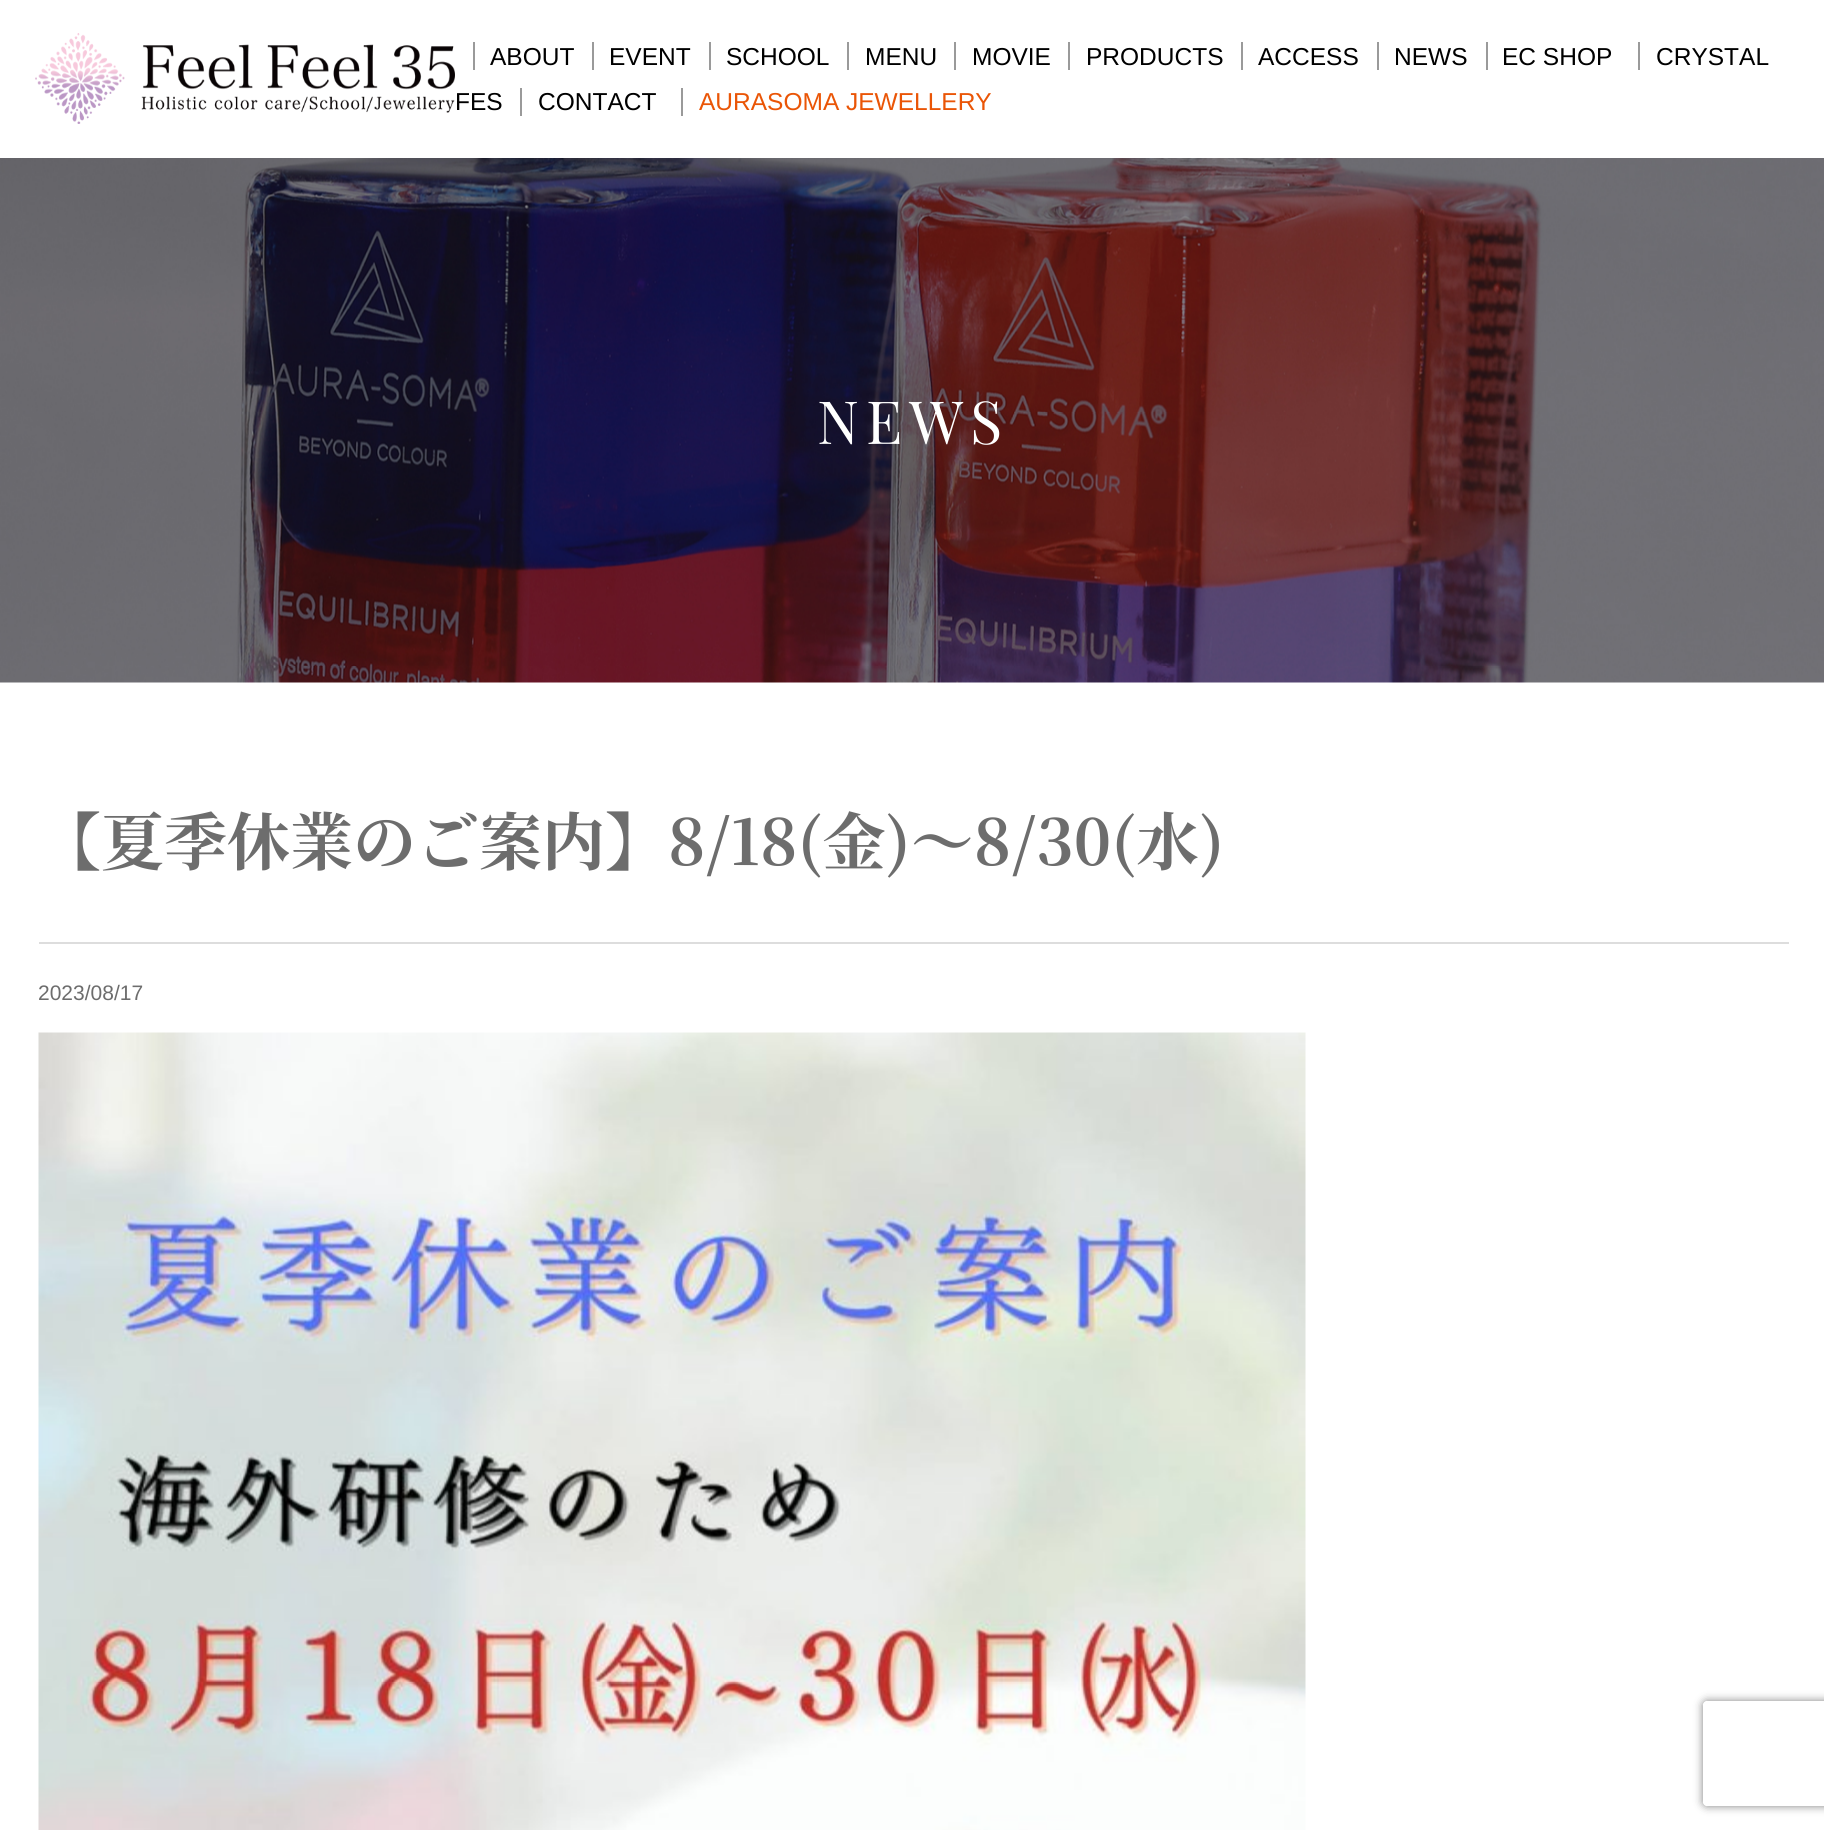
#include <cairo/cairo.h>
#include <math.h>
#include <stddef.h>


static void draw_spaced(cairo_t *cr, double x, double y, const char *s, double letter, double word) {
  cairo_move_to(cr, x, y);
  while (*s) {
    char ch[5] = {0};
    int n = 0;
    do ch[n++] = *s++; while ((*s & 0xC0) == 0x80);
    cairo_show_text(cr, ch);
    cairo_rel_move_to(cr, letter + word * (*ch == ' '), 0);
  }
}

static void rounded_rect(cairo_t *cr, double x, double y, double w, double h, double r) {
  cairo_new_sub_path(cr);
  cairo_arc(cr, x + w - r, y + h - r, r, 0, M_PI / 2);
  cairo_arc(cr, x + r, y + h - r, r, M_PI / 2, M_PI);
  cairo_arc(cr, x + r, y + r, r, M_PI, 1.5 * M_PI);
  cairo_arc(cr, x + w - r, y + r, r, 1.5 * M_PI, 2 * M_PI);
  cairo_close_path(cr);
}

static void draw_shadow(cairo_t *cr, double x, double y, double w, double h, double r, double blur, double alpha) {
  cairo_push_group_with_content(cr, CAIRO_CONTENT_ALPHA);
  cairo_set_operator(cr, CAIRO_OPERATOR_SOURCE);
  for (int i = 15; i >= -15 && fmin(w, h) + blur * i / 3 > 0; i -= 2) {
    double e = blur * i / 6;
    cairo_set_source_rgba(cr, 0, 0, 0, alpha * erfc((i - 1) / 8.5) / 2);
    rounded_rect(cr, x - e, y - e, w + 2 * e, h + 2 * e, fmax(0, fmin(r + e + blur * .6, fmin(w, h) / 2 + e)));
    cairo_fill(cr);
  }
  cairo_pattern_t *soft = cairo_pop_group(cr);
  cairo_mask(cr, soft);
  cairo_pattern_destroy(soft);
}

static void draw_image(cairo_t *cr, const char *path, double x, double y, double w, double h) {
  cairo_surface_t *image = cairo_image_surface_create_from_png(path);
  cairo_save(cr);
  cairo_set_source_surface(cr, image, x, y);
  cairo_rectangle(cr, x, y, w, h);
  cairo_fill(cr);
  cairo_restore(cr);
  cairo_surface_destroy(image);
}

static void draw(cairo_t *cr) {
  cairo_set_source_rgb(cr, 1, 1, 1);
  cairo_paint(cr);
  draw_image(cr, "images/1.png", 35, 33, 420, 91);
  cairo_set_source_rgb(cr, 154 / 255.0, 154 / 255.0, 154 / 255.0);
  cairo_rectangle(cr, 1638, 42, 2, 28);
  cairo_fill(cr);
  cairo_rectangle(cr, 473, 42, 2, 28);
  cairo_fill(cr);
  cairo_rectangle(cr, 592, 42, 2, 28);
  cairo_fill(cr);
  cairo_rectangle(cr, 709, 42, 2, 28);
  cairo_fill(cr);
  cairo_rectangle(cr, 847, 42, 2, 28);
  cairo_fill(cr);
  cairo_rectangle(cr, 954, 42, 2, 28);
  cairo_fill(cr);
  cairo_rectangle(cr, 1068, 42, 2, 28);
  cairo_fill(cr);
  cairo_rectangle(cr, 1241, 42, 2, 28);
  cairo_fill(cr);
  cairo_rectangle(cr, 1377, 42, 2, 28);
  cairo_fill(cr);
  cairo_rectangle(cr, 1486, 42, 2, 28);
  cairo_fill(cr);
  cairo_rectangle(cr, 520, 88, 2, 28);
  cairo_fill(cr);
  cairo_rectangle(cr, 681, 88, 2, 28);
  cairo_fill(cr);
  draw_image(cr, "images/2.png", 0, 158, 1824, 525);
  cairo_set_source_rgb(cr, 221 / 255.0, 221 / 255.0, 221 / 255.0);
  cairo_rectangle(cr, 39, 942, 1750, 2);
  cairo_fill(cr);
  draw_image(cr, "images/3.png", 38, 1032, 1268, 798);
  cairo_save(cr);
  cairo_set_fill_rule(cr, CAIRO_FILL_RULE_EVEN_ODD);
  cairo_new_path(cr);
  cairo_move_to(cr, 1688, 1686);
  cairo_line_to(cr, 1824, 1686);
  cairo_line_to(cr, 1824, 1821);
  cairo_line_to(cr, 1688, 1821);
  cairo_close_path(cr);
  cairo_move_to(cr, 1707, 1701);
  cairo_line_to(cr, 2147, 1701);
  cairo_curve_to(cr, 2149, 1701, 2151, 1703, 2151, 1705);
  cairo_line_to(cr, 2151, 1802);
  cairo_curve_to(cr, 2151, 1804, 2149, 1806, 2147, 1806);
  cairo_line_to(cr, 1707, 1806);
  cairo_curve_to(cr, 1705, 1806, 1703, 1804, 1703, 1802);
  cairo_line_to(cr, 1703, 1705);
  cairo_curve_to(cr, 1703, 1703, 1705, 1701, 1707, 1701);
  cairo_close_path(cr);
  cairo_clip(cr);
  cairo_set_source_rgb(cr, 128 / 255.0, 128 / 255.0, 128 / 255.0);
  draw_shadow(cr, 1703, 1701, 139, 105, 4, 4.5, 1);
  cairo_restore(cr);
  cairo_select_font_face(cr, "Liberation Sans", CAIRO_FONT_SLANT_NORMAL, CAIRO_FONT_WEIGHT_NORMAL);
  cairo_set_font_size(cr, 24.5);
  cairo_set_source_rgb(cr, 0, 0, 0);
  cairo_move_to(cr, 1656, 65);
  cairo_show_text(cr, "CRYSTAL");
  cairo_move_to(cr, 455, 110);
  cairo_show_text(cr, "FES");
  cairo_move_to(cr, 490, 65);
  cairo_show_text(cr, "ABOUT");
  cairo_move_to(cr, 609, 65);
  cairo_show_text(cr, "EVENT");
  cairo_move_to(cr, 726, 65);
  cairo_show_text(cr, "SCHOOL");
  cairo_move_to(cr, 865, 65);
  cairo_show_text(cr, "MENU");
  cairo_move_to(cr, 972, 65);
  cairo_show_text(cr, "MOVIE");
  cairo_move_to(cr, 1086, 65);
  cairo_show_text(cr, "PRODUCTS");
  cairo_move_to(cr, 1258, 65);
  cairo_show_text(cr, "ACCESS");
  cairo_move_to(cr, 1394, 65);
  cairo_show_text(cr, "NEWS");
  cairo_move_to(cr, 1502, 65);
  cairo_show_text(cr, "EC SHOP");
  cairo_move_to(cr, 538, 110);
  cairo_show_text(cr, "CONTACT");
  cairo_set_source_rgb(cr, 234 / 255.0, 85 / 255.0, 6 / 255.0);
  cairo_move_to(cr, 699, 110);
  cairo_show_text(cr, "AURASOMA JEWELLERY");
  cairo_select_font_face(cr, "Playfair Display", CAIRO_FONT_SLANT_NORMAL, CAIRO_FONT_WEIGHT_NORMAL);
  cairo_set_font_size(cr, 59.5);
  cairo_set_source_rgb(cr, 1, 1, 1);
  draw_spaced(cr, 817, 444, "NEWS", 7, 0);
  cairo_select_font_face(cr, "Noto Serif JP", CAIRO_FONT_SLANT_NORMAL, CAIRO_FONT_WEIGHT_BOLD);
  cairo_set_font_size(cr, 63);
  cairo_set_source_rgb(cr, 109 / 255.0, 109 / 255.0, 109 / 255.0);
  cairo_move_to(cr, 38, 865);
  cairo_show_text(cr, "【夏季休業のご案内】8/18(金)～8/30(水)");
  cairo_select_font_face(cr, "Liberation Sans", CAIRO_FONT_SLANT_NORMAL, CAIRO_FONT_WEIGHT_NORMAL);
  cairo_set_font_size(cr, 21);
  cairo_move_to(cr, 38, 1000);
  cairo_show_text(cr, "2023/08/17");
}

int main(void) {
  cairo_surface_t *surface = cairo_image_surface_create(CAIRO_FORMAT_RGB24, 1824, 1830);
  cairo_t *cr = cairo_create(surface);
  cairo_font_options_t *options = cairo_font_options_create();
  cairo_font_options_set_hint_metrics(options, CAIRO_HINT_METRICS_OFF);
  cairo_font_options_set_hint_style(options, CAIRO_HINT_STYLE_NONE);
  cairo_set_font_options(cr, options);
  cairo_set_miter_limit(cr, 4);
  draw(cr);
  cairo_surface_write_to_png(surface, "out.png");
  cairo_font_options_destroy(options);
  cairo_destroy(cr);
  cairo_surface_destroy(surface);
  return 0;
}
